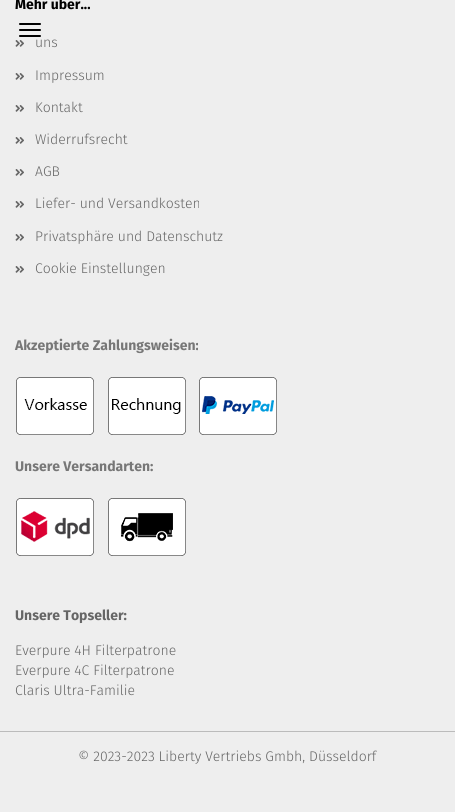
#include <cairo/cairo.h>
#include <math.h>
#include <stddef.h>


static void rounded_rect(cairo_t *cr, double x, double y, double w, double h, double r) {
  cairo_new_sub_path(cr);
  cairo_arc(cr, x + w - r, y + h - r, r, 0, M_PI / 2);
  cairo_arc(cr, x + r, y + h - r, r, M_PI / 2, M_PI);
  cairo_arc(cr, x + r, y + r, r, M_PI, 1.5 * M_PI);
  cairo_arc(cr, x + w - r, y + r, r, 1.5 * M_PI, 2 * M_PI);
  cairo_close_path(cr);
}

static void draw_image(cairo_t *cr, const char *path, double x, double y, double w, double h) {
  cairo_surface_t *image = cairo_image_surface_create_from_png(path);
  cairo_save(cr);
  cairo_set_source_surface(cr, image, x, y);
  cairo_rectangle(cr, x, y, w, h);
  cairo_fill(cr);
  cairo_restore(cr);
  cairo_surface_destroy(image);
}

static void draw(cairo_t *cr) {
  cairo_set_source_rgb(cr, 238 / 255.0, 238 / 255.0, 238 / 255.0);
  cairo_paint(cr);
  cairo_set_source_rgb(cr, 187 / 255.0, 187 / 255.0, 187 / 255.0);
  cairo_rectangle(cr, 0, 731, 455, 1);
  cairo_fill(cr);
  draw_image(cr, "images/1.png", 15, 40, 9, 7);
  draw_image(cr, "images/1.png", 15, 73, 9, 7);
  draw_image(cr, "images/1.png", 15, 105, 9, 7);
  draw_image(cr, "images/1.png", 15, 137, 9, 7);
  draw_image(cr, "images/1.png", 15, 169, 9, 7);
  draw_image(cr, "images/1.png", 15, 201, 9, 7);
  draw_image(cr, "images/1.png", 15, 234, 9, 7);
  draw_image(cr, "images/1.png", 15, 266, 9, 7);
  draw_image(cr, "images/2.png", 16, 377, 78, 58);
  draw_image(cr, "images/3.png", 108, 377, 78, 58);
  draw_image(cr, "images/4.png", 199, 377, 78, 58);
  draw_image(cr, "images/5.png", 16, 498, 78, 58);
  draw_image(cr, "images/6.png", 108, 498, 78, 58);
  cairo_set_source_rgb(cr, 0, 0, 0);
  rounded_rect(cr, 19, 29, 22, 2, 1);
  cairo_fill(cr);
  rounded_rect(cr, 19, 23, 22, 2, 1);
  cairo_fill(cr);
  rounded_rect(cr, 19, 35, 22, 2, 1);
  cairo_fill(cr);
  cairo_select_font_face(cr, "Fira Sans", CAIRO_FONT_SLANT_NORMAL, CAIRO_FONT_WEIGHT_BOLD);
  cairo_set_font_size(cr, 14);
  cairo_move_to(cr, 15, 9);
  cairo_show_text(cr, "Mehr über...");
  cairo_select_font_face(cr, "Fira Sans Light", CAIRO_FONT_SLANT_NORMAL, CAIRO_FONT_WEIGHT_NORMAL);
  cairo_set_source_rgb(cr, 102 / 255.0, 102 / 255.0, 102 / 255.0);
  cairo_move_to(cr, 35, 47);
  cairo_show_text(cr, "uns");
  cairo_move_to(cr, 35, 80);
  cairo_show_text(cr, "Impressum");
  cairo_move_to(cr, 35, 112);
  cairo_show_text(cr, "Kontakt");
  cairo_move_to(cr, 35, 144);
  cairo_show_text(cr, "Widerrufsrecht");
  cairo_move_to(cr, 35, 176);
  cairo_show_text(cr, "AGB");
  cairo_move_to(cr, 35, 208);
  cairo_show_text(cr, "Liefer- und Versandkosten");
  cairo_move_to(cr, 35, 241);
  cairo_show_text(cr, "Privatsphäre und Datenschutz");
  cairo_move_to(cr, 35, 273);
  cairo_show_text(cr, "Cookie Einstellungen");
  cairo_select_font_face(cr, "Fira Sans", CAIRO_FONT_SLANT_NORMAL, CAIRO_FONT_WEIGHT_BOLD);
  cairo_set_source_rgb(cr, 119 / 255.0, 119 / 255.0, 119 / 255.0);
  cairo_move_to(cr, 15, 350);
  cairo_show_text(cr, "Akzeptierte Zahlungsweisen:");
  cairo_move_to(cr, 15, 471);
  cairo_show_text(cr, "Unsere Versandarten:");
  cairo_set_source_rgb(cr, 102 / 255.0, 102 / 255.0, 102 / 255.0);
  cairo_move_to(cr, 15, 620);
  cairo_show_text(cr, "Unsere Topseller:");
  cairo_select_font_face(cr, "Fira Sans Light", CAIRO_FONT_SLANT_NORMAL, CAIRO_FONT_WEIGHT_NORMAL);
  cairo_move_to(cr, 15, 655);
  cairo_show_text(cr, "Everpure 4H Filterpatrone");
  cairo_move_to(cr, 15, 675);
  cairo_show_text(cr, "Everpure 4C Filterpatrone");
  cairo_move_to(cr, 15, 695);
  cairo_show_text(cr, "Claris Ultra-Familie");
  cairo_move_to(cr, 78, 761);
  cairo_show_text(cr, "© 2023-2023 Liberty Vertriebs Gmbh, Düsseldorf");
}

int main(void) {
  cairo_surface_t *surface = cairo_image_surface_create(CAIRO_FORMAT_RGB24, 455, 812);
  cairo_t *cr = cairo_create(surface);
  cairo_font_options_t *options = cairo_font_options_create();
  cairo_font_options_set_hint_metrics(options, CAIRO_HINT_METRICS_OFF);
  cairo_font_options_set_hint_style(options, CAIRO_HINT_STYLE_NONE);
  cairo_set_font_options(cr, options);
  cairo_set_miter_limit(cr, 4);
  draw(cr);
  cairo_surface_write_to_png(surface, "out.png");
  cairo_font_options_destroy(options);
  cairo_destroy(cr);
  cairo_surface_destroy(surface);
  return 0;
}
